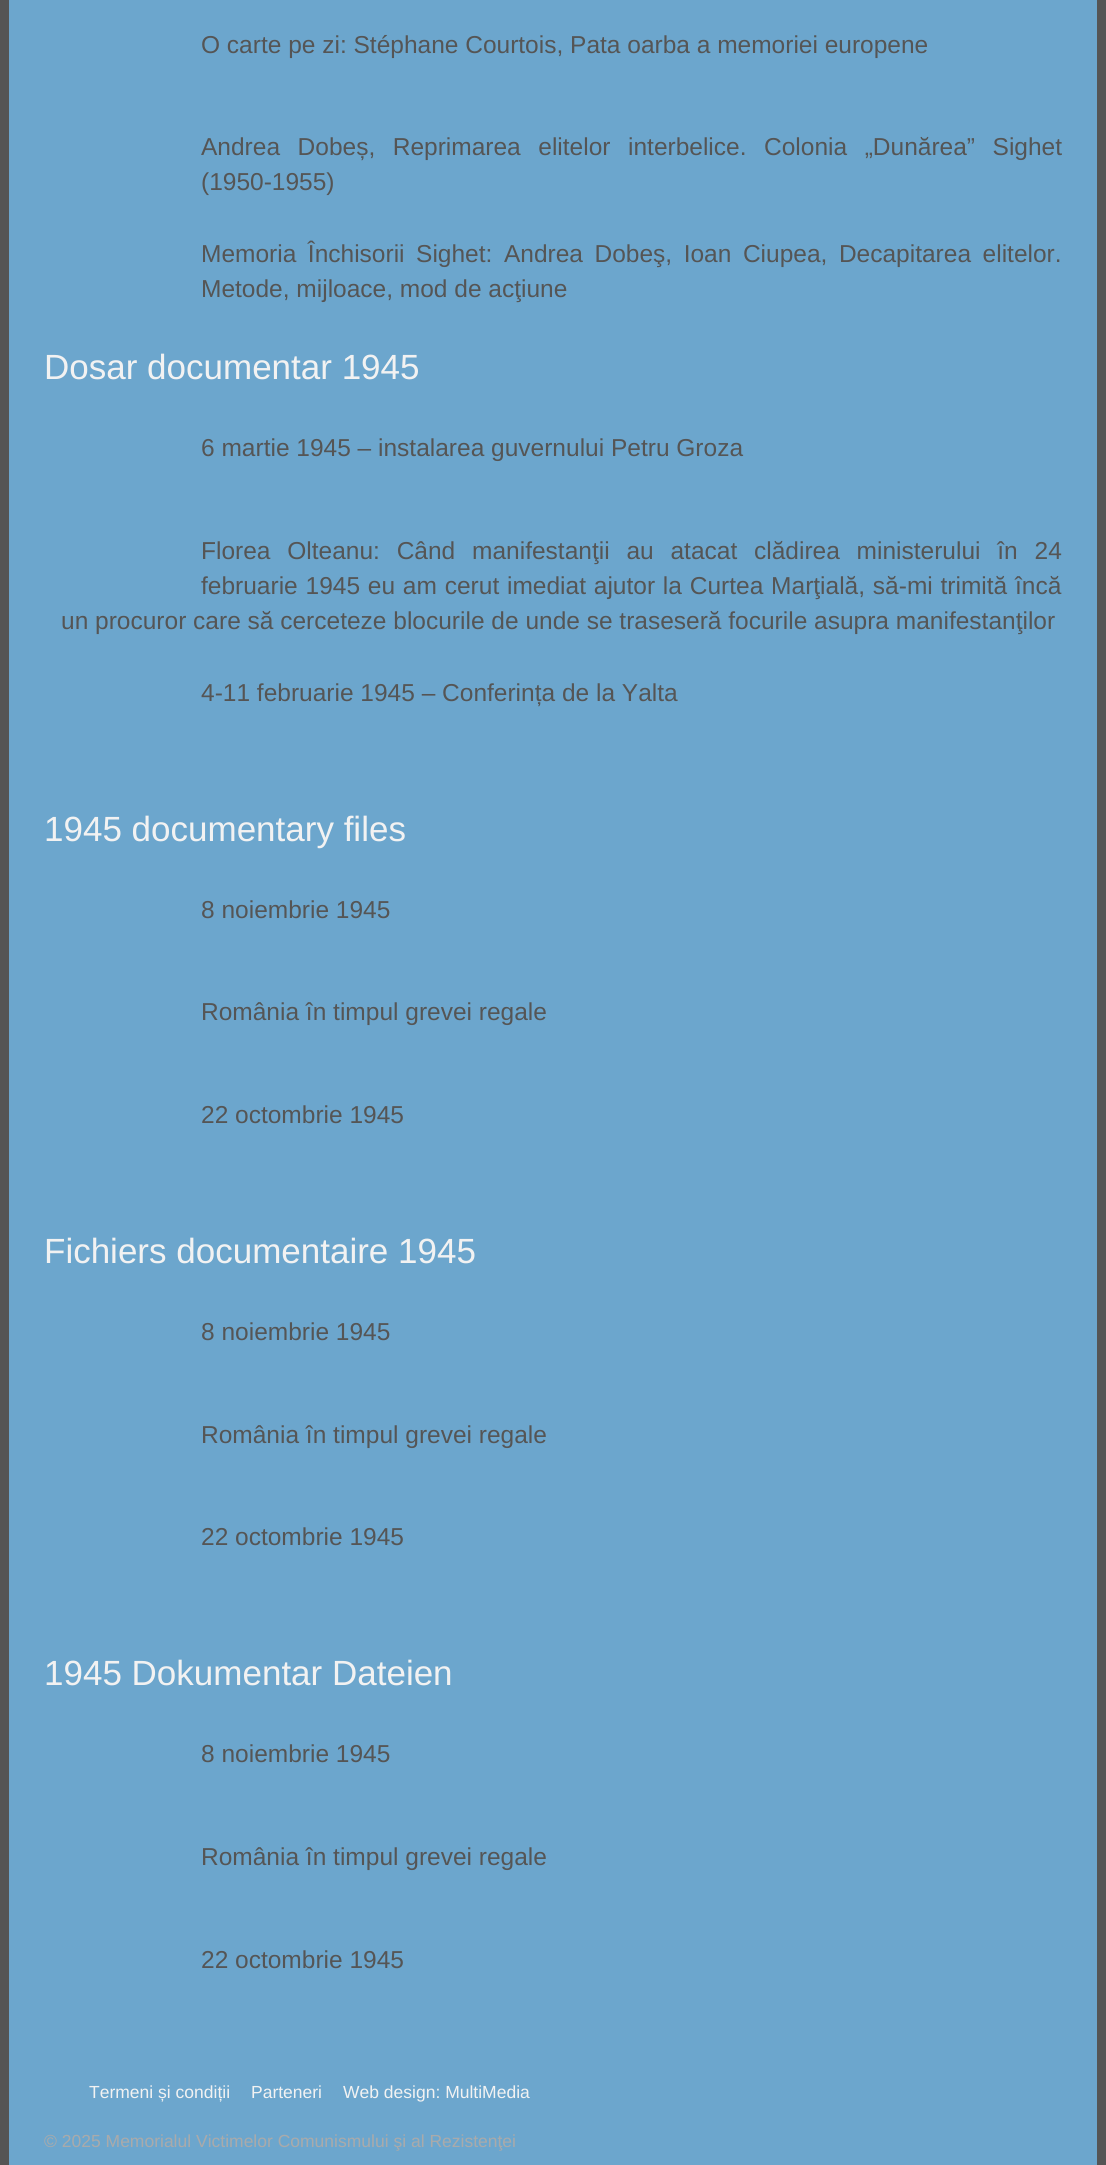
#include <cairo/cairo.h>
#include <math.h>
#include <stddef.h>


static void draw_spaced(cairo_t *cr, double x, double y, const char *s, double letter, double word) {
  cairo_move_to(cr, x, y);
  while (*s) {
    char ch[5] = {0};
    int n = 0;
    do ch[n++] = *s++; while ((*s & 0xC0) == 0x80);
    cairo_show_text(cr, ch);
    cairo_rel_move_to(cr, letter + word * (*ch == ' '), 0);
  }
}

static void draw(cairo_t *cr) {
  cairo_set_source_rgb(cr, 85 / 255.0, 85 / 255.0, 85 / 255.0);
  cairo_paint(cr);
  cairo_set_source_rgb(cr, 108 / 255.0, 166 / 255.0, 205 / 255.0);
  cairo_rectangle(cr, 9, 0, 1088, 2165);
  cairo_fill(cr);
  cairo_select_font_face(cr, "Liberation Sans", CAIRO_FONT_SLANT_NORMAL, CAIRO_FONT_WEIGHT_NORMAL);
  cairo_set_font_size(cr, 24.5);
  cairo_set_source_rgb(cr, 85 / 255.0, 85 / 255.0, 85 / 255.0);
  cairo_move_to(cr, 201, 53);
  cairo_show_text(cr, "O carte pe zi: Stéphane Courtois, Pata oarba a memoriei europene");
  draw_spaced(cr, 201, 155, "Andrea Dobeș, Reprimarea elitelor interbelice. Colonia „Dunărea” Sighet", 0, 10.75);
  cairo_move_to(cr, 201, 190);
  cairo_show_text(cr, "(1950-1955)");
  draw_spaced(cr, 201, 262, "Memoria Închisorii Sighet: Andrea Dobeş, Ioan Ciupea, Decapitarea elitelor.", 0, 4.75);
  cairo_move_to(cr, 201, 297);
  cairo_show_text(cr, "Metode, mijloace, mod de acţiune");
  cairo_set_font_size(cr, 35);
  cairo_set_source_rgb(cr, 242 / 255.0, 242 / 255.0, 242 / 255.0);
  cairo_move_to(cr, 44, 379);
  cairo_show_text(cr, "Dosar documentar 1945");
  cairo_set_font_size(cr, 24.5);
  cairo_set_source_rgb(cr, 85 / 255.0, 85 / 255.0, 85 / 255.0);
  cairo_move_to(cr, 201, 456);
  cairo_show_text(cr, "6 martie 1945 – instalarea guvernului Petru Groza");
  draw_spaced(cr, 201, 559, "Florea Olteanu: Când manifestanţii au atacat clădirea ministerului în 24", 0, 10);
  draw_spaced(cr, 201, 594, "februarie 1945 eu am cerut imediat ajutor la Curtea Marţială, să-mi trimită încă", 0, 1);
  cairo_move_to(cr, 61, 629);
  cairo_show_text(cr, "un procuror care să cerceteze blocurile de unde se traseseră focurile asupra manifestanţilor");
  cairo_move_to(cr, 201, 701);
  cairo_show_text(cr, "4-11 februarie 1945 – Conferința de la Yalta");
  cairo_set_font_size(cr, 35);
  cairo_set_source_rgb(cr, 242 / 255.0, 242 / 255.0, 242 / 255.0);
  cairo_move_to(cr, 44, 841);
  cairo_show_text(cr, "1945 documentary files");
  cairo_set_font_size(cr, 24.5);
  cairo_set_source_rgb(cr, 85 / 255.0, 85 / 255.0, 85 / 255.0);
  cairo_move_to(cr, 201, 918);
  cairo_show_text(cr, "8 noiembrie 1945");
  cairo_move_to(cr, 201, 1020);
  cairo_show_text(cr, "România în timpul grevei regale");
  cairo_move_to(cr, 201, 1123);
  cairo_show_text(cr, "22 octombrie 1945");
  cairo_set_font_size(cr, 35);
  cairo_set_source_rgb(cr, 242 / 255.0, 242 / 255.0, 242 / 255.0);
  cairo_move_to(cr, 44, 1263);
  cairo_show_text(cr, "Fichiers documentaire 1945");
  cairo_set_font_size(cr, 24.5);
  cairo_set_source_rgb(cr, 85 / 255.0, 85 / 255.0, 85 / 255.0);
  cairo_move_to(cr, 201, 1340);
  cairo_show_text(cr, "8 noiembrie 1945");
  cairo_move_to(cr, 201, 1443);
  cairo_show_text(cr, "România în timpul grevei regale");
  cairo_move_to(cr, 201, 1545);
  cairo_show_text(cr, "22 octombrie 1945");
  cairo_set_font_size(cr, 35);
  cairo_set_source_rgb(cr, 242 / 255.0, 242 / 255.0, 242 / 255.0);
  cairo_move_to(cr, 44, 1685);
  cairo_show_text(cr, "1945 Dokumentar Dateien");
  cairo_set_font_size(cr, 24.5);
  cairo_set_source_rgb(cr, 85 / 255.0, 85 / 255.0, 85 / 255.0);
  cairo_move_to(cr, 201, 1762);
  cairo_show_text(cr, "8 noiembrie 1945");
  cairo_move_to(cr, 201, 1865);
  cairo_show_text(cr, "România în timpul grevei regale");
  cairo_move_to(cr, 201, 1968);
  cairo_show_text(cr, "22 octombrie 1945");
  cairo_set_font_size(cr, 17.5);
  cairo_set_source_rgb(cr, 242 / 255.0, 242 / 255.0, 242 / 255.0);
  cairo_move_to(cr, 89, 2098);
  cairo_show_text(cr, "Termeni și condiții");
  cairo_move_to(cr, 251, 2098);
  cairo_show_text(cr, "Parteneri");
  cairo_move_to(cr, 343, 2098);
  cairo_show_text(cr, "Web design: MultiMedia");
  cairo_set_source_rgb(cr, 170 / 255.0, 170 / 255.0, 170 / 255.0);
  cairo_move_to(cr, 44, 2147);
  cairo_show_text(cr, "© 2025 Memorialul Victimelor Comunismului şi al Rezistenţei");
}

int main(void) {
  cairo_surface_t *surface = cairo_image_surface_create(CAIRO_FORMAT_RGB24, 1106, 2165);
  cairo_t *cr = cairo_create(surface);
  cairo_font_options_t *options = cairo_font_options_create();
  cairo_font_options_set_hint_metrics(options, CAIRO_HINT_METRICS_OFF);
  cairo_font_options_set_hint_style(options, CAIRO_HINT_STYLE_NONE);
  cairo_set_font_options(cr, options);
  cairo_set_miter_limit(cr, 4);
  draw(cr);
  cairo_surface_write_to_png(surface, "out.png");
  cairo_font_options_destroy(options);
  cairo_destroy(cr);
  cairo_surface_destroy(surface);
  return 0;
}
